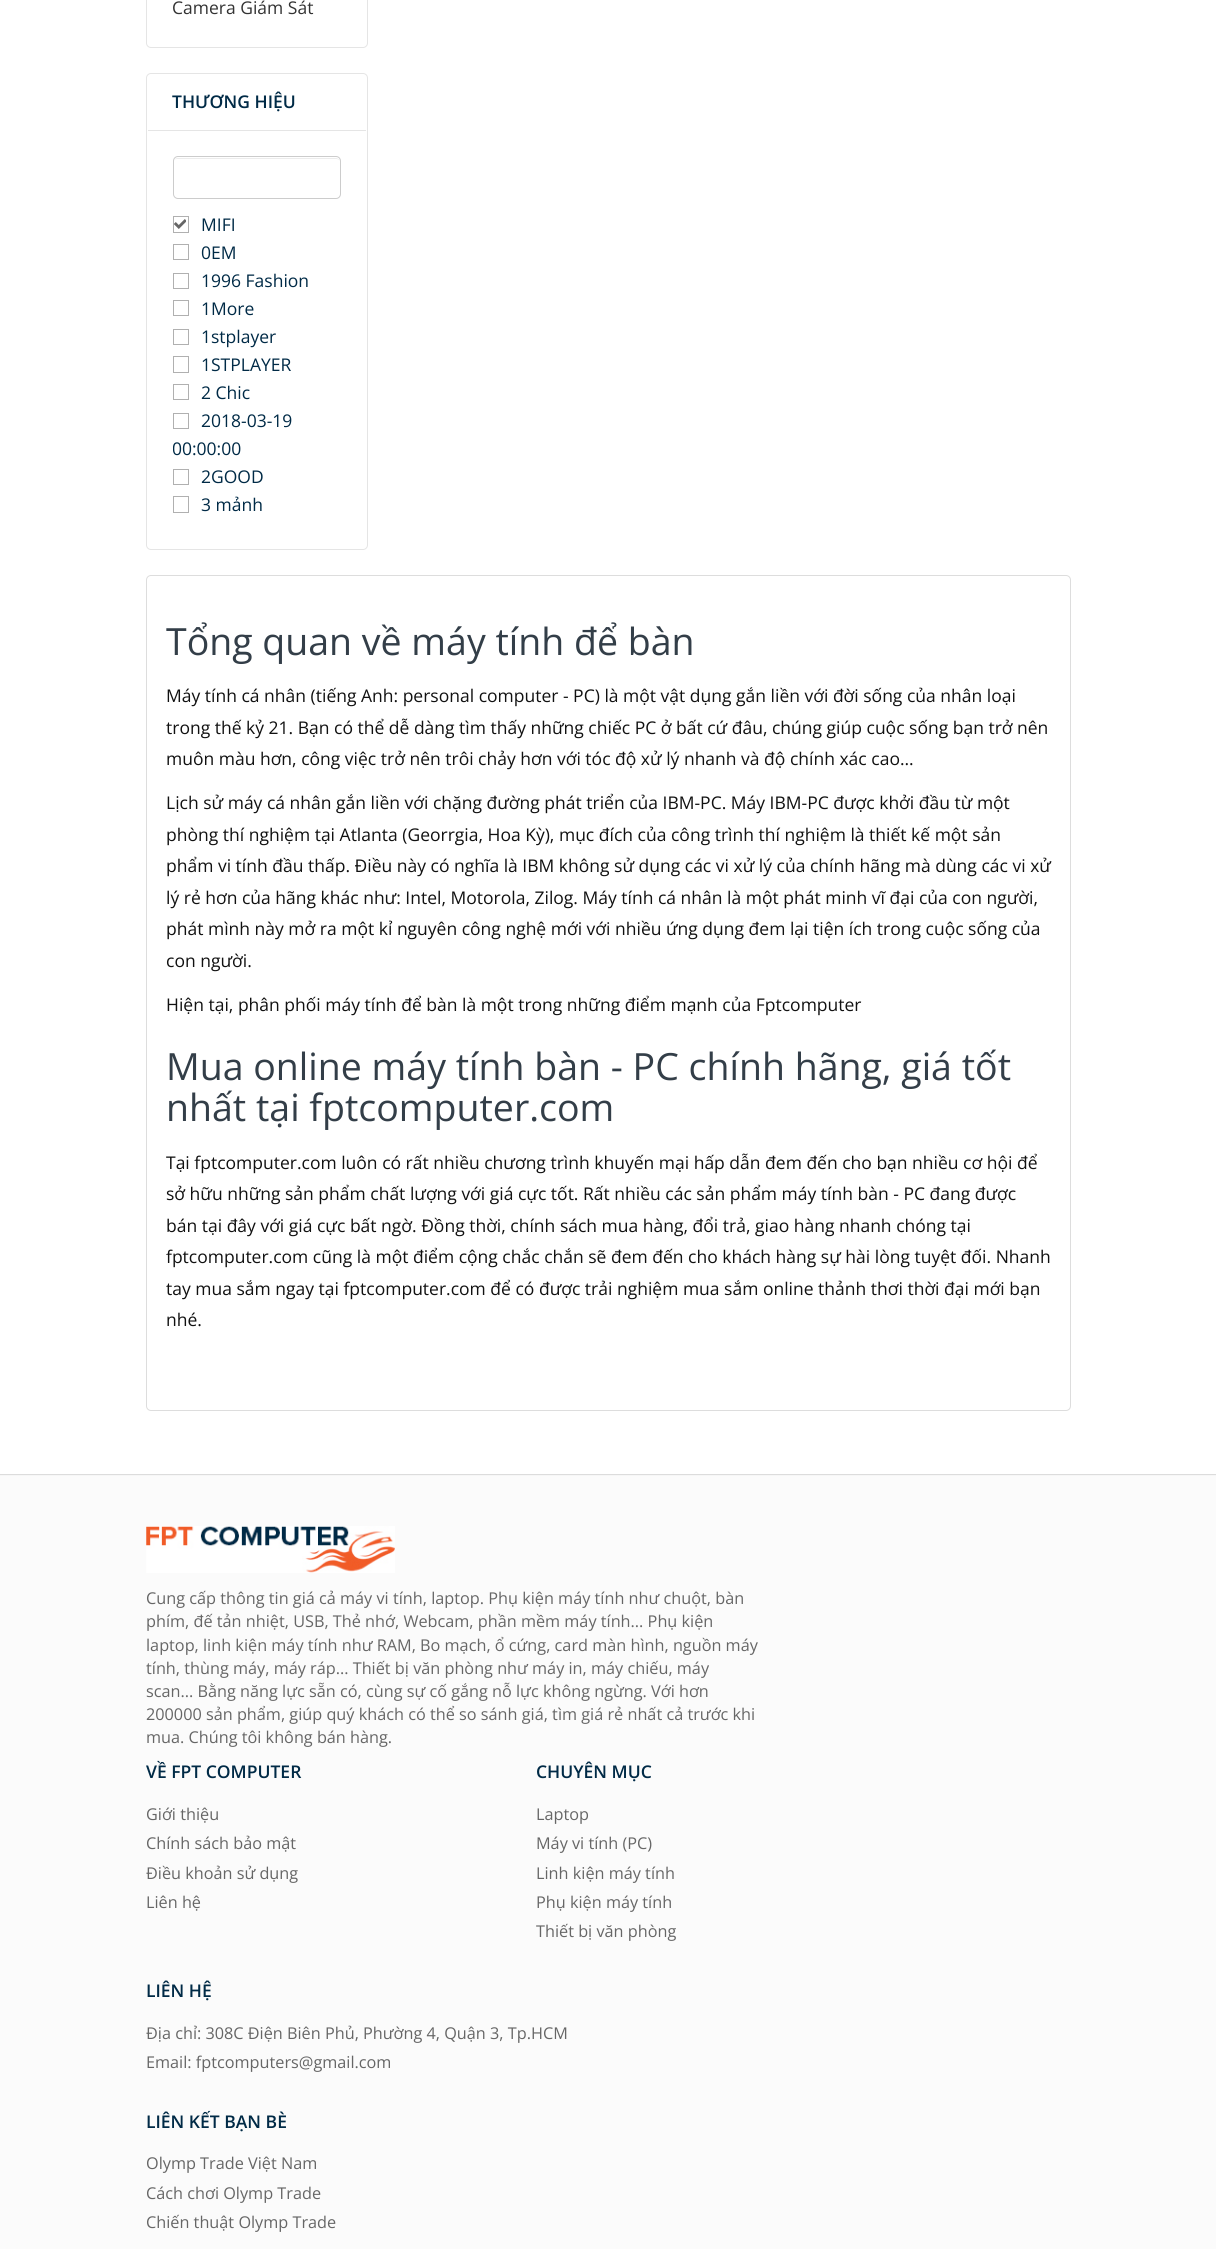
#include <cairo/cairo.h>
#include <math.h>
#include <stddef.h>


static void rounded_rect(cairo_t *cr, double x, double y, double w, double h, double r) {
  cairo_new_sub_path(cr);
  cairo_arc(cr, x + w - r, y + h - r, r, 0, M_PI / 2);
  cairo_arc(cr, x + r, y + h - r, r, M_PI / 2, M_PI);
  cairo_arc(cr, x + r, y + r, r, M_PI, 1.5 * M_PI);
  cairo_arc(cr, x + w - r, y + r, r, 1.5 * M_PI, 2 * M_PI);
  cairo_close_path(cr);
}

static void draw_shadow(cairo_t *cr, double x, double y, double w, double h, double r, double blur, double alpha) {
  cairo_push_group_with_content(cr, CAIRO_CONTENT_ALPHA);
  cairo_set_operator(cr, CAIRO_OPERATOR_SOURCE);
  for (int i = 15; i >= -15 && fmin(w, h) + blur * i / 3 > 0; i -= 2) {
    double e = blur * i / 6;
    cairo_set_source_rgba(cr, 0, 0, 0, alpha * erfc((i - 1) / 8.5) / 2);
    rounded_rect(cr, x - e, y - e, w + 2 * e, h + 2 * e, fmax(0, fmin(r + e + blur * .6, fmin(w, h) / 2 + e)));
    cairo_fill(cr);
  }
  cairo_pattern_t *soft = cairo_pop_group(cr);
  cairo_mask(cr, soft);
  cairo_pattern_destroy(soft);
}

static void draw_image(cairo_t *cr, const char *path, double x, double y, double w, double h) {
  cairo_surface_t *image = cairo_image_surface_create_from_png(path);
  cairo_save(cr);
  cairo_set_source_surface(cr, image, x, y);
  cairo_rectangle(cr, x, y, w, h);
  cairo_fill(cr);
  cairo_restore(cr);
  cairo_surface_destroy(image);
}

static void draw(cairo_t *cr) {
  cairo_set_source_rgb(cr, 1, 1, 1);
  cairo_paint(cr);
  rounded_rect(cr, 146.5, -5.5, 221, 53, 4.5);
  cairo_set_source_rgb(cr, 229 / 255.0, 229 / 255.0, 229 / 255.0);
  cairo_set_line_width(cr, 1);
  cairo_stroke(cr);
  rounded_rect(cr, 146.5, 73.5, 221, 476, 4.5);
  cairo_stroke(cr);
  cairo_rectangle(cr, 148, 130, 218, 1);
  cairo_fill(cr);
  cairo_set_source_rgb(cr, 236 / 255.0, 236 / 255.0, 236 / 255.0);
  cairo_new_path(cr);
  cairo_move_to(cr, 178, 159);
  cairo_line_to(cr, 336, 159);
  cairo_curve_to(cr, 338, 159, 340, 160, 340, 162);
  cairo_curve_to(cr, 340, 160, 338, 158, 336, 158);
  cairo_line_to(cr, 178, 158);
  cairo_curve_to(cr, 176, 158, 175, 159, 174, 160);
  cairo_curve_to(cr, 175, 159, 176, 159, 178, 159);
  cairo_close_path(cr);
  cairo_fill(cr);
  rounded_rect(cr, 173.5, 156.5, 167, 42, 4.5);
  cairo_set_source_rgb(cr, 204 / 255.0, 204 / 255.0, 204 / 255.0);
  cairo_stroke(cr);
  draw_image(cr, "images/1.png", 174, 219, 12, 10);
  cairo_rectangle(cr, 173.5, 216.5, 15, 16);
  cairo_set_source_rgb(cr, 176 / 255.0, 176 / 255.0, 176 / 255.0);
  cairo_stroke(cr);
  cairo_rectangle(cr, 173.5, 244.5, 15, 15);
  cairo_stroke(cr);
  cairo_rectangle(cr, 173.5, 273.5, 15, 15);
  cairo_stroke(cr);
  cairo_rectangle(cr, 173.5, 300.5, 15, 15);
  cairo_stroke(cr);
  cairo_rectangle(cr, 173.5, 329.5, 15, 15);
  cairo_stroke(cr);
  cairo_rectangle(cr, 173.5, 356.5, 15, 16);
  cairo_stroke(cr);
  cairo_rectangle(cr, 173.5, 384.5, 15, 15);
  cairo_stroke(cr);
  cairo_rectangle(cr, 173.5, 413.5, 15, 15);
  cairo_stroke(cr);
  cairo_rectangle(cr, 173.5, 469.5, 15, 15);
  cairo_stroke(cr);
  cairo_rectangle(cr, 173.5, 496.5, 15, 16);
  cairo_stroke(cr);
  cairo_save(cr);
  cairo_set_fill_rule(cr, CAIRO_FILL_RULE_EVEN_ODD);
  cairo_new_path(cr);
  cairo_move_to(cr, 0, 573);
  cairo_line_to(cr, 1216, 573);
  cairo_line_to(cr, 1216, 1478);
  cairo_line_to(cr, 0, 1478);
  cairo_close_path(cr);
  cairo_move_to(cr, 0, 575);
  cairo_line_to(cr, 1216, 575);
  cairo_line_to(cr, 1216, 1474);
  cairo_line_to(cr, 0, 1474);
  cairo_close_path(cr);
  cairo_clip(cr);
  cairo_set_source_rgb(cr, 180 / 255.0, 180 / 255.0, 180 / 255.0);
  draw_shadow(cr, 0, 576, 1216, 899, 0, 0.5, 0.5);
  cairo_restore(cr);
  rounded_rect(cr, 146.5, 575.5, 924, 835, 4.5);
  cairo_set_source_rgb(cr, 221 / 255.0, 221 / 255.0, 221 / 255.0);
  cairo_stroke(cr);
  cairo_set_source_rgb(cr, 220 / 255.0, 220 / 255.0, 220 / 255.0);
  cairo_rectangle(cr, 0, 1474, 1216, 1);
  cairo_fill(cr);
  cairo_set_source_rgb(cr, 251 / 255.0, 251 / 255.0, 251 / 255.0);
  cairo_rectangle(cr, 0, 1476, 1216, 773);
  cairo_fill(cr);
  draw_image(cr, "images/2.png", 146, 1526, 249, 47);
  cairo_select_font_face(cr, "Open Sans", CAIRO_FONT_SLANT_NORMAL, CAIRO_FONT_WEIGHT_NORMAL);
  cairo_set_font_size(cr, 17.5);
  cairo_set_source_rgb(cr, 51 / 255.0, 51 / 255.0, 51 / 255.0);
  cairo_move_to(cr, 172, 14);
  cairo_show_text(cr, "Camera Giám Sát");
  cairo_select_font_face(cr, "Open Sans SemiBold", CAIRO_FONT_SLANT_NORMAL, CAIRO_FONT_WEIGHT_NORMAL);
  cairo_set_source_rgb(cr, 0, 42 / 255.0, 70 / 255.0);
  cairo_move_to(cr, 172, 108);
  cairo_show_text(cr, "THƯƠNG HIỆU");
  cairo_select_font_face(cr, "Open Sans", CAIRO_FONT_SLANT_NORMAL, CAIRO_FONT_WEIGHT_NORMAL);
  cairo_move_to(cr, 201, 231);
  cairo_show_text(cr, "MIFI");
  cairo_move_to(cr, 201, 259);
  cairo_show_text(cr, "0EM");
  cairo_move_to(cr, 201, 287);
  cairo_show_text(cr, "1996 Fashion");
  cairo_move_to(cr, 201, 315);
  cairo_show_text(cr, "1More");
  cairo_move_to(cr, 201, 343);
  cairo_show_text(cr, "1stplayer");
  cairo_move_to(cr, 201, 371);
  cairo_show_text(cr, "1STPLAYER");
  cairo_move_to(cr, 201, 399);
  cairo_show_text(cr, "2 Chic");
  cairo_move_to(cr, 201, 427);
  cairo_show_text(cr, "2018-03-19");
  cairo_save(cr);
  cairo_rectangle(cr, 173, 211, 168, 313);
  cairo_clip(cr);
  cairo_move_to(cr, 172, 455);
  cairo_show_text(cr, "00:00:00");
  cairo_restore(cr);
  cairo_move_to(cr, 201, 483);
  cairo_show_text(cr, "2GOOD");
  cairo_move_to(cr, 201, 511);
  cairo_show_text(cr, "3 mảnh");
  cairo_set_font_size(cr, 37.5);
  cairo_set_source_rgb(cr, 51 / 255.0, 62 / 255.0, 72 / 255.0);
  cairo_move_to(cr, 166, 655);
  cairo_show_text(cr, "Tổng quan về máy tính để bàn");
  cairo_set_font_size(cr, 17.5);
  cairo_set_source_rgb(cr, 17 / 255.0, 17 / 255.0, 17 / 255.0);
  cairo_move_to(cr, 166, 702);
  cairo_show_text(cr, "Máy tính cá nhân (tiếng Anh: personal computer - PC) là một vật dụng gắn liền với đời sống của nhân loại");
  cairo_move_to(cr, 166, 734);
  cairo_show_text(cr, "trong thế kỷ 21. Bạn có thể dễ dàng tìm thấy những chiếc PC ở bất cứ đâu, chúng giúp cuộc sống bạn trở nên");
  cairo_move_to(cr, 166, 765);
  cairo_show_text(cr, "muôn màu hơn, công việc trở nên trôi chảy hơn với tóc độ xử lý nhanh và độ chính xác cao...");
  cairo_move_to(cr, 166, 809);
  cairo_show_text(cr, "Lịch sử máy cá nhân gắn liền với chặng đường phát triển của IBM-PC. Máy IBM-PC được khởi đầu từ một");
  cairo_move_to(cr, 166, 841);
  cairo_show_text(cr, "phòng thí nghiệm tại Atlanta (Georrgia, Hoa Kỳ), mục đích của công trình thí nghiệm là thiết kế một sản");
  cairo_move_to(cr, 166, 872);
  cairo_show_text(cr, "phẩm vi tính đầu thấp. Điều này có nghĩa là IBM không sử dụng các vi xử lý của chính hãng mà dùng các vi xử");
  cairo_move_to(cr, 166, 904);
  cairo_show_text(cr, "lý rẻ hơn của hãng khác như: Intel, Motorola, Zilog. Máy tính cá nhân là một phát minh vĩ đại của con người,");
  cairo_move_to(cr, 166, 935);
  cairo_show_text(cr, "phát mình này mở ra một kỉ nguyên công nghệ mới với nhiều ứng dụng đem lại tiện ích trong cuộc sống của");
  cairo_move_to(cr, 166, 967);
  cairo_show_text(cr, "con người.");
  cairo_move_to(cr, 166, 1011);
  cairo_show_text(cr, "Hiện tại, phân phối máy tính để bàn là một trong những điểm mạnh của Fptcomputer");
  cairo_set_font_size(cr, 37.5);
  cairo_set_source_rgb(cr, 51 / 255.0, 62 / 255.0, 72 / 255.0);
  cairo_move_to(cr, 166, 1080);
  cairo_show_text(cr, "Mua online máy tính bàn - PC chính hãng, giá tốt");
  cairo_move_to(cr, 166, 1121);
  cairo_show_text(cr, "nhất tại fptcomputer.com");
  cairo_set_font_size(cr, 17.5);
  cairo_set_source_rgb(cr, 17 / 255.0, 17 / 255.0, 17 / 255.0);
  cairo_move_to(cr, 166, 1169);
  cairo_show_text(cr, "Tại fptcomputer.com luôn có rất nhiều chương trình khuyến mại hấp dẫn đem đến cho bạn nhiều cơ hội để");
  cairo_move_to(cr, 166, 1200);
  cairo_show_text(cr, "sở hữu những sản phẩm chất lượng với giá cực tốt. Rất nhiều các sản phẩm máy tính bàn - PC đang được");
  cairo_move_to(cr, 166, 1232);
  cairo_show_text(cr, "bán tại đây với giá cực bất ngờ. Đồng thời, chính sách mua hàng, đổi trả, giao hàng nhanh chóng tại");
  cairo_move_to(cr, 166, 1263);
  cairo_show_text(cr, "fptcomputer.com cũng là một điểm cộng chắc chắn sẽ đem đến cho khách hàng sự hài lòng tuyệt đối. Nhanh");
  cairo_move_to(cr, 166, 1295);
  cairo_show_text(cr, "tay mua sắm ngay tại fptcomputer.com để có được trải nghiệm mua sắm online thảnh thơi thời đại mới bạn");
  cairo_move_to(cr, 166, 1326);
  cairo_show_text(cr, "nhé.");
  cairo_set_font_size(cr, 16.25);
  cairo_set_source_rgb(cr, 102 / 255.0, 102 / 255.0, 102 / 255.0);
  cairo_move_to(cr, 146, 1604);
  cairo_show_text(cr, "Cung cấp thông tin giá cả máy vi tính, laptop. Phụ kiện máy tính như chuột, bàn");
  cairo_move_to(cr, 146, 1627);
  cairo_show_text(cr, "phím, đế tản nhiệt, USB, Thẻ nhớ, Webcam, phần mềm máy tính... Phụ kiện");
  cairo_move_to(cr, 146, 1651);
  cairo_show_text(cr, "laptop, linh kiện máy tính như RAM, Bo mạch, ổ cứng, card màn hình, nguồn máy");
  cairo_move_to(cr, 146, 1674);
  cairo_show_text(cr, "tính, thùng máy, máy ráp... Thiết bị văn phòng như máy in, máy chiếu, máy");
  cairo_move_to(cr, 146, 1697);
  cairo_show_text(cr, "scan... Bằng năng lực sẵn có, cùng sự cố gắng nỗ lực không ngừng. Với hơn");
  cairo_move_to(cr, 146, 1720);
  cairo_show_text(cr, "200000 sản phẩm, giúp quý khách có thể so sánh giá, tìm giá rẻ nhất cả trước khi");
  cairo_move_to(cr, 146, 1743);
  cairo_show_text(cr, "mua. Chúng tôi không bán hàng.");
  cairo_select_font_face(cr, "Open Sans SemiBold", CAIRO_FONT_SLANT_NORMAL, CAIRO_FONT_WEIGHT_NORMAL);
  cairo_set_font_size(cr, 17.5);
  cairo_set_source_rgb(cr, 0, 42 / 255.0, 70 / 255.0);
  cairo_move_to(cr, 146, 1778);
  cairo_show_text(cr, "VỀ FPT COMPUTER");
  cairo_select_font_face(cr, "Open Sans", CAIRO_FONT_SLANT_NORMAL, CAIRO_FONT_WEIGHT_NORMAL);
  cairo_set_font_size(cr, 16.25);
  cairo_set_source_rgb(cr, 102 / 255.0, 102 / 255.0, 102 / 255.0);
  cairo_move_to(cr, 146, 1820);
  cairo_show_text(cr, "Giới thiệu");
  cairo_move_to(cr, 146, 1849);
  cairo_show_text(cr, "Chính sách bảo mật");
  cairo_move_to(cr, 146, 1879);
  cairo_show_text(cr, "Điều khoản sử dụng");
  cairo_move_to(cr, 146, 1908);
  cairo_show_text(cr, "Liên hệ");
  cairo_select_font_face(cr, "Open Sans SemiBold", CAIRO_FONT_SLANT_NORMAL, CAIRO_FONT_WEIGHT_NORMAL);
  cairo_set_font_size(cr, 17.5);
  cairo_set_source_rgb(cr, 0, 42 / 255.0, 70 / 255.0);
  cairo_move_to(cr, 536, 1778);
  cairo_show_text(cr, "CHUYÊN MỤC");
  cairo_select_font_face(cr, "Open Sans", CAIRO_FONT_SLANT_NORMAL, CAIRO_FONT_WEIGHT_NORMAL);
  cairo_set_font_size(cr, 16.25);
  cairo_set_source_rgb(cr, 102 / 255.0, 102 / 255.0, 102 / 255.0);
  cairo_move_to(cr, 536, 1820);
  cairo_show_text(cr, "Laptop");
  cairo_move_to(cr, 536, 1849);
  cairo_show_text(cr, "Máy vi tính (PC)");
  cairo_move_to(cr, 536, 1879);
  cairo_show_text(cr, "Linh kiện máy tính");
  cairo_move_to(cr, 536, 1908);
  cairo_show_text(cr, "Phụ kiện máy tính");
  cairo_move_to(cr, 536, 1937);
  cairo_show_text(cr, "Thiết bị văn phòng");
  cairo_select_font_face(cr, "Open Sans SemiBold", CAIRO_FONT_SLANT_NORMAL, CAIRO_FONT_WEIGHT_NORMAL);
  cairo_set_font_size(cr, 17.5);
  cairo_set_source_rgb(cr, 0, 42 / 255.0, 70 / 255.0);
  cairo_move_to(cr, 146, 1997);
  cairo_show_text(cr, "LIÊN HỆ");
  cairo_select_font_face(cr, "Open Sans", CAIRO_FONT_SLANT_NORMAL, CAIRO_FONT_WEIGHT_NORMAL);
  cairo_set_font_size(cr, 16.25);
  cairo_set_source_rgb(cr, 102 / 255.0, 102 / 255.0, 102 / 255.0);
  cairo_move_to(cr, 146, 2039);
  cairo_show_text(cr, "Địa chỉ: 308C Điện Biên Phủ, Phường 4, Quận 3, Tp.HCM");
  cairo_move_to(cr, 146, 2068);
  cairo_show_text(cr, "Email: fptcomputers@gmail.com");
  cairo_select_font_face(cr, "Open Sans SemiBold", CAIRO_FONT_SLANT_NORMAL, CAIRO_FONT_WEIGHT_NORMAL);
  cairo_set_font_size(cr, 17.5);
  cairo_set_source_rgb(cr, 0, 42 / 255.0, 70 / 255.0);
  cairo_move_to(cr, 146, 2128);
  cairo_show_text(cr, "LIÊN KẾT BẠN BÈ");
  cairo_select_font_face(cr, "Open Sans", CAIRO_FONT_SLANT_NORMAL, CAIRO_FONT_WEIGHT_NORMAL);
  cairo_set_font_size(cr, 16.25);
  cairo_set_source_rgb(cr, 102 / 255.0, 102 / 255.0, 102 / 255.0);
  cairo_move_to(cr, 146, 2169);
  cairo_show_text(cr, "Olymp Trade Việt Nam");
  cairo_move_to(cr, 146, 2199);
  cairo_show_text(cr, "Cách chơi Olymp Trade");
  cairo_move_to(cr, 146, 2228);
  cairo_show_text(cr, "Chiến thuật Olymp Trade");
}

int main(void) {
  cairo_surface_t *surface = cairo_image_surface_create(CAIRO_FORMAT_RGB24, 1216, 2249);
  cairo_t *cr = cairo_create(surface);
  cairo_font_options_t *options = cairo_font_options_create();
  cairo_font_options_set_hint_metrics(options, CAIRO_HINT_METRICS_OFF);
  cairo_font_options_set_hint_style(options, CAIRO_HINT_STYLE_NONE);
  cairo_set_font_options(cr, options);
  cairo_set_miter_limit(cr, 4);
  draw(cr);
  cairo_surface_write_to_png(surface, "out.png");
  cairo_font_options_destroy(options);
  cairo_destroy(cr);
  cairo_surface_destroy(surface);
  return 0;
}
